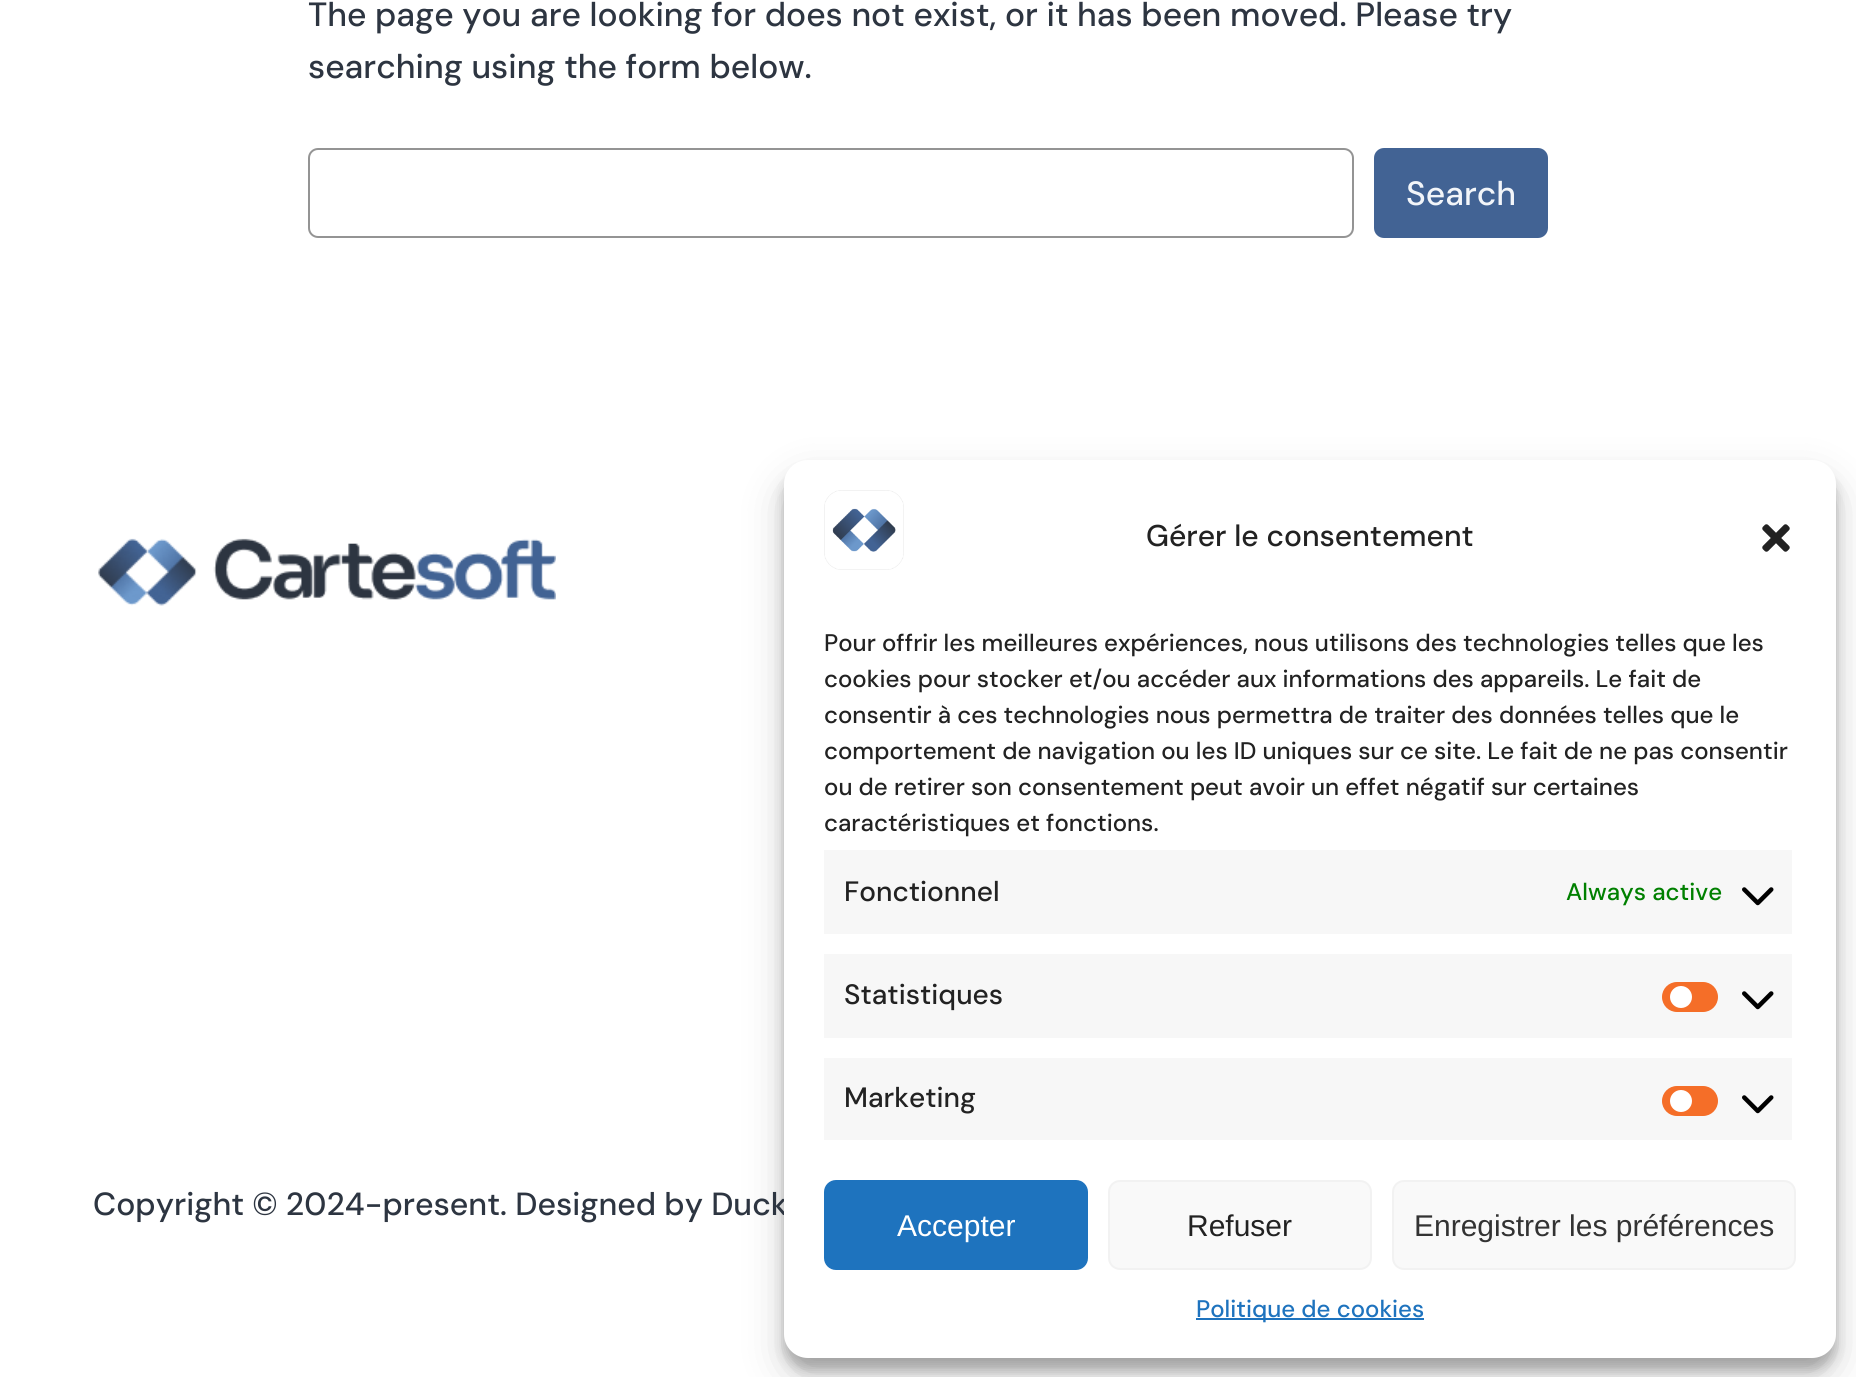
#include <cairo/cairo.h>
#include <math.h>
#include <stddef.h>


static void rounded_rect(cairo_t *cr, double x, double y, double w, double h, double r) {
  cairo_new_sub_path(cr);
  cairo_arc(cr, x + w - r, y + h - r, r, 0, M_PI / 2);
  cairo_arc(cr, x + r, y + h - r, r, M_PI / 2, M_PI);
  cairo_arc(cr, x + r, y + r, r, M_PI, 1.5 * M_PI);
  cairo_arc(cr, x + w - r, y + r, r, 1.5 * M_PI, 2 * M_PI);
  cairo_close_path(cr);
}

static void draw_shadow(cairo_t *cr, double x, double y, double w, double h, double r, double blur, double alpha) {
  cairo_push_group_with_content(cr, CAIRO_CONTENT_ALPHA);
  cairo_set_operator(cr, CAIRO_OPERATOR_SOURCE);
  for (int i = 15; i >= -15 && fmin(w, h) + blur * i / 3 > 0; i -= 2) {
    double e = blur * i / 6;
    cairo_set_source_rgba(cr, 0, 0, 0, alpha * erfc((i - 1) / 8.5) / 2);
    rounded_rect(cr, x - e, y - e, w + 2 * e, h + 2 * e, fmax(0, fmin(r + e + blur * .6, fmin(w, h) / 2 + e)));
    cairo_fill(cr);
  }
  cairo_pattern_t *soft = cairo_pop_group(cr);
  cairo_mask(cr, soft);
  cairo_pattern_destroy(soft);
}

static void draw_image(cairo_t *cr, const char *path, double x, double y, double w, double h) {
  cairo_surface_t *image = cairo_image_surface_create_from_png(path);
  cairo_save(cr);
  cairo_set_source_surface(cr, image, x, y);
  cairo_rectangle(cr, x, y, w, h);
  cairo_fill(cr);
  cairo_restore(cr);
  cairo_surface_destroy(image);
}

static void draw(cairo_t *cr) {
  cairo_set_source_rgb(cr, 1, 1, 1);
  cairo_paint(cr);
  rounded_rect(cr, 309, 149, 1044, 88, 9);
  cairo_set_source_rgb(cr, 148 / 255.0, 148 / 255.0, 148 / 255.0);
  cairo_stroke(cr);
  cairo_set_source_rgb(cr, 66 / 255.0, 99 / 255.0, 148 / 255.0);
  rounded_rect(cr, 1374, 148, 174, 90, 10);
  cairo_fill(cr);
  draw_image(cr, "images/1.png", 98, 538, 458, 68);
  cairo_set_source_rgb(cr, 0, 0, 0);
  draw_shadow(cr, 784, 472, 1052, 898, 24, 6, 0.23);
  draw_shadow(cr, 784, 480, 1052, 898, 24, 20, 0.19);
  cairo_select_font_face(cr, "DM Sans Medium", CAIRO_FONT_SLANT_NORMAL, CAIRO_FONT_WEIGHT_NORMAL);
  cairo_set_font_size(cr, 33.6);
  cairo_set_source_rgb(cr, 45 / 255.0, 53 / 255.0, 65 / 255.0);
  cairo_move_to(cr, 308, 26);
  cairo_show_text(cr, "The page you are looking for does not exist, or it has been moved. Please try");
  cairo_move_to(cr, 308, 78);
  cairo_show_text(cr, "searching using the form below.");
  cairo_set_source_rgb(cr, 242 / 255.0, 245 / 255.0, 249 / 255.0);
  cairo_move_to(cr, 1406, 205);
  cairo_show_text(cr, "Search");
  cairo_set_font_size(cr, 32);
  cairo_set_source_rgb(cr, 45 / 255.0, 53 / 255.0, 65 / 255.0);
  cairo_move_to(cr, 93, 1215);
  cairo_show_text(cr, "Copyright © 2024-present. Designed by Duck");
  cairo_set_source_rgb(cr, 1, 1, 1);
  rounded_rect(cr, 784, 460, 1052, 898, 24);
  cairo_fill(cr);
  draw_image(cr, "images/2.png", 824, 490, 80, 80);
  cairo_set_font_size(cr, 30);
  cairo_set_source_rgb(cr, 34 / 255.0, 34 / 255.0, 34 / 255.0);
  cairo_move_to(cr, 1146, 546);
  cairo_show_text(cr, "Gérer le consentement");
  draw_image(cr, "images/3.png", 1762, 524, 28, 28);
  cairo_set_font_size(cr, 24);
  cairo_move_to(cr, 824, 651);
  cairo_show_text(cr, "Pour offrir les meilleures expériences, nous utilisons des technologies telles que les");
  cairo_move_to(cr, 824, 687);
  cairo_show_text(cr, "cookies pour stocker et/ou accéder aux informations des appareils. Le fait de");
  cairo_move_to(cr, 824, 723);
  cairo_show_text(cr, "consentir à ces technologies nous permettra de traiter des données telles que le");
  cairo_move_to(cr, 824, 759);
  cairo_show_text(cr, "comportement de navigation ou les ID uniques sur ce site. Le fait de ne pas consentir");
  cairo_move_to(cr, 824, 795);
  cairo_show_text(cr, "ou de retirer son consentement peut avoir un effet négatif sur certaines");
  cairo_move_to(cr, 824, 831);
  cairo_show_text(cr, "caractéristiques et fonctions.");
  cairo_set_source_rgb(cr, 247 / 255.0, 247 / 255.0, 247 / 255.0);
  cairo_rectangle(cr, 824, 850, 968, 84);
  cairo_fill(cr);
  cairo_set_font_size(cr, 28);
  cairo_set_source_rgb(cr, 34 / 255.0, 34 / 255.0, 34 / 255.0);
  cairo_move_to(cr, 844, 901);
  cairo_show_text(cr, "Fonctionnel");
  cairo_set_font_size(cr, 24);
  cairo_set_source_rgb(cr, 0, 128 / 255.0, 0);
  cairo_move_to(cr, 1566, 900);
  cairo_show_text(cr, "Always active");
  draw_image(cr, "images/4.png", 1742, 887, 32, 19);
  cairo_set_source_rgb(cr, 247 / 255.0, 247 / 255.0, 247 / 255.0);
  cairo_rectangle(cr, 824, 954, 968, 84);
  cairo_fill(cr);
  cairo_set_font_size(cr, 28);
  cairo_set_source_rgb(cr, 34 / 255.0, 34 / 255.0, 34 / 255.0);
  cairo_move_to(cr, 844, 1004);
  cairo_show_text(cr, "Statistiques");
  cairo_set_source_rgb(cr, 245 / 255.0, 110 / 255.0, 40 / 255.0);
  rounded_rect(cr, 1662, 982, 56, 30, 15);
  cairo_fill(cr);
  cairo_set_source_rgb(cr, 1, 1, 1);
  cairo_arc(cr, 1681, 997, 11, 0, 2 * M_PI);
  cairo_fill(cr);
  draw_image(cr, "images/4.png", 1742, 991, 32, 19);
  cairo_set_source_rgb(cr, 247 / 255.0, 247 / 255.0, 247 / 255.0);
  cairo_rectangle(cr, 824, 1058, 968, 82);
  cairo_fill(cr);
  cairo_set_source_rgb(cr, 34 / 255.0, 34 / 255.0, 34 / 255.0);
  cairo_move_to(cr, 844, 1107);
  cairo_show_text(cr, "Marketing");
  cairo_set_source_rgb(cr, 245 / 255.0, 110 / 255.0, 40 / 255.0);
  rounded_rect(cr, 1662, 1086, 56, 30, 15);
  cairo_fill(cr);
  cairo_set_source_rgb(cr, 1, 1, 1);
  cairo_arc(cr, 1681, 1101, 11, 0, 2 * M_PI);
  cairo_fill(cr);
  draw_image(cr, "images/4.png", 1742, 1095, 32, 19);
  cairo_set_source_rgb(cr, 30 / 255.0, 115 / 255.0, 190 / 255.0);
  rounded_rect(cr, 825, 1181, 262, 88, 11);
  cairo_fill_preserve(cr);
  cairo_stroke(cr);
  cairo_select_font_face(cr, "Liberation Sans", CAIRO_FONT_SLANT_NORMAL, CAIRO_FONT_WEIGHT_NORMAL);
  cairo_set_font_size(cr, 30);
  cairo_set_source_rgb(cr, 1, 1, 1);
  cairo_move_to(cr, 897, 1236);
  cairo_show_text(cr, "Accepter");
  cairo_set_source_rgb(cr, 249 / 255.0, 249 / 255.0, 249 / 255.0);
  rounded_rect(cr, 1109, 1181, 262, 88, 11);
  cairo_fill_preserve(cr);
  cairo_set_source_rgb(cr, 242 / 255.0, 242 / 255.0, 242 / 255.0);
  cairo_stroke(cr);
  cairo_set_source_rgb(cr, 34 / 255.0, 34 / 255.0, 34 / 255.0);
  cairo_move_to(cr, 1187, 1236);
  cairo_show_text(cr, "Refuser");
  cairo_set_source_rgb(cr, 249 / 255.0, 249 / 255.0, 249 / 255.0);
  rounded_rect(cr, 1393, 1181, 402, 88, 11);
  cairo_fill_preserve(cr);
  cairo_set_source_rgb(cr, 242 / 255.0, 242 / 255.0, 242 / 255.0);
  cairo_stroke(cr);
  cairo_set_source_rgb(cr, 51 / 255.0, 51 / 255.0, 51 / 255.0);
  cairo_move_to(cr, 1414, 1236);
  cairo_show_text(cr, "Enregistrer les préférences");
  cairo_set_source_rgb(cr, 30 / 255.0, 115 / 255.0, 190 / 255.0);
  cairo_rectangle(cr, 1196, 1318, 228, 2);
  cairo_fill(cr);
  cairo_select_font_face(cr, "DM Sans Medium", CAIRO_FONT_SLANT_NORMAL, CAIRO_FONT_WEIGHT_NORMAL);
  cairo_set_font_size(cr, 24);
  cairo_move_to(cr, 1196, 1317);
  cairo_show_text(cr, "Politique de cookies");
}

int main(void) {
  cairo_surface_t *surface = cairo_image_surface_create(CAIRO_FORMAT_RGB24, 1856, 1377);
  cairo_t *cr = cairo_create(surface);
  cairo_font_options_t *options = cairo_font_options_create();
  cairo_font_options_set_hint_metrics(options, CAIRO_HINT_METRICS_OFF);
  cairo_font_options_set_hint_style(options, CAIRO_HINT_STYLE_NONE);
  cairo_set_font_options(cr, options);
  cairo_set_miter_limit(cr, 4);
  draw(cr);
  cairo_surface_write_to_png(surface, "out.png");
  cairo_font_options_destroy(options);
  cairo_destroy(cr);
  cairo_surface_destroy(surface);
  return 0;
}
